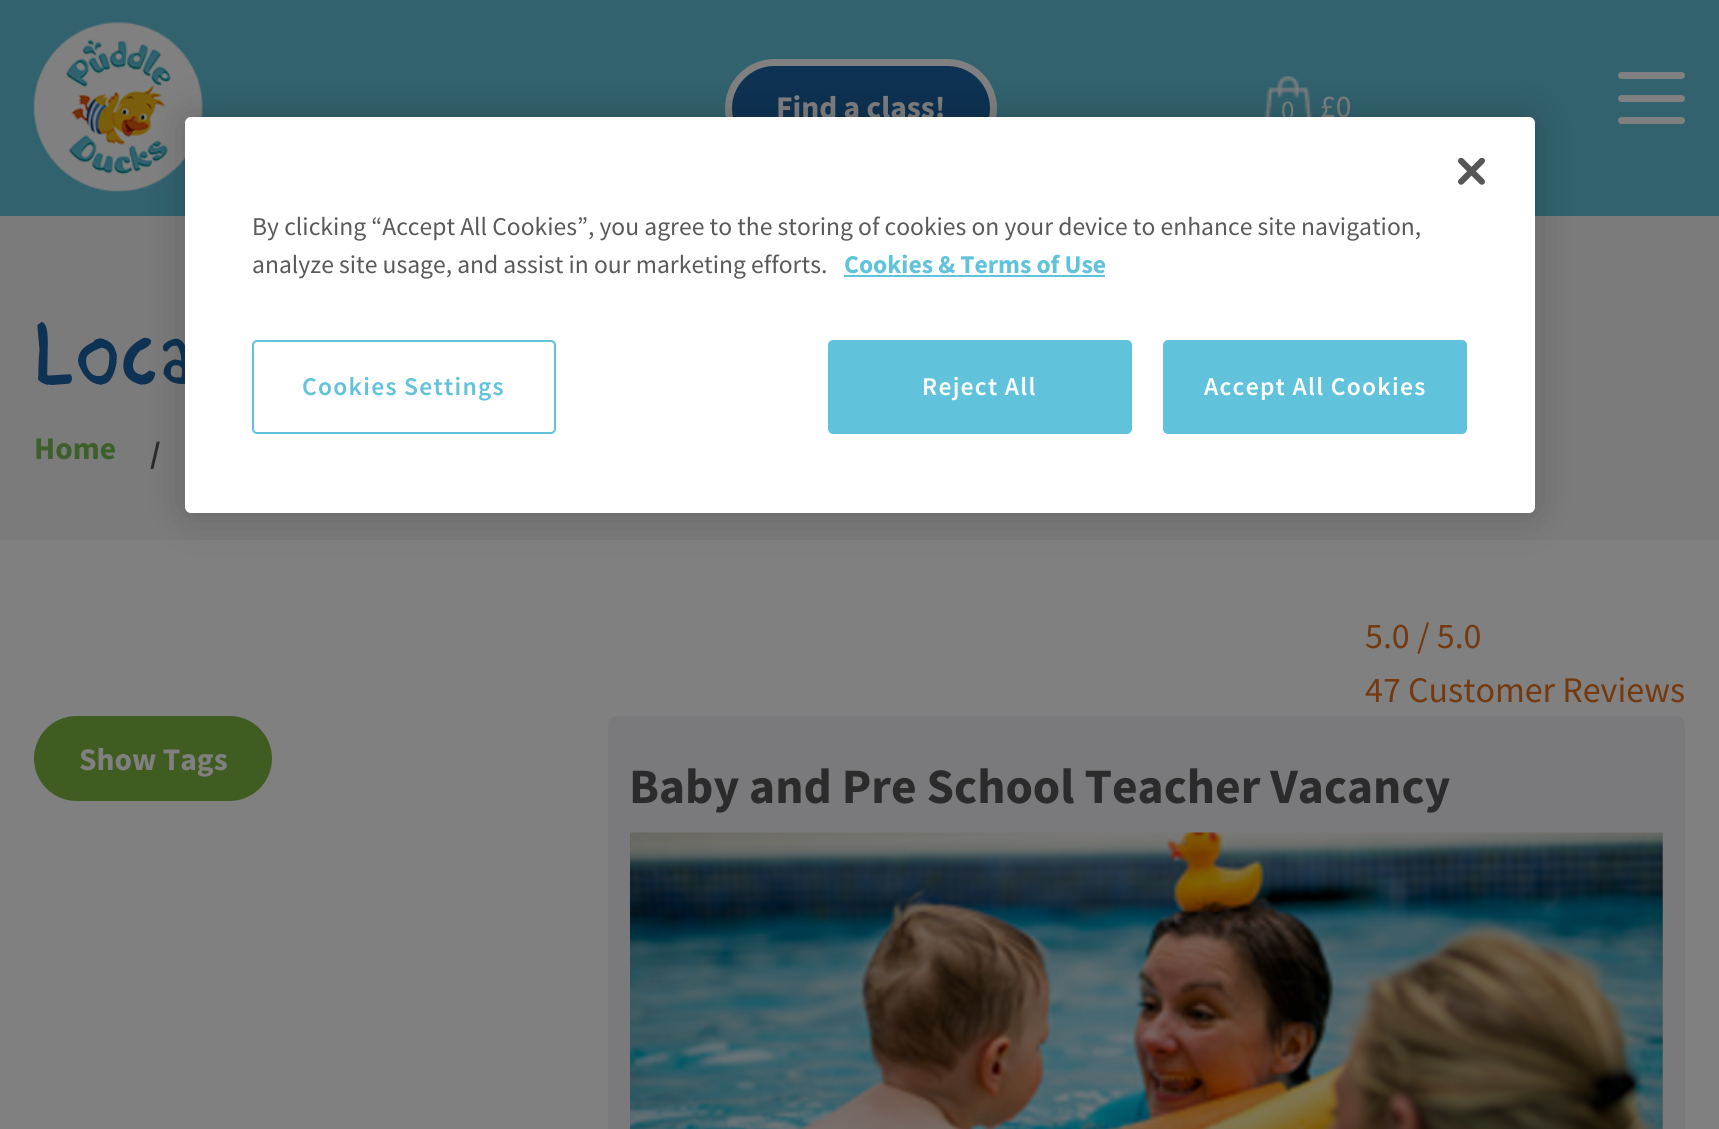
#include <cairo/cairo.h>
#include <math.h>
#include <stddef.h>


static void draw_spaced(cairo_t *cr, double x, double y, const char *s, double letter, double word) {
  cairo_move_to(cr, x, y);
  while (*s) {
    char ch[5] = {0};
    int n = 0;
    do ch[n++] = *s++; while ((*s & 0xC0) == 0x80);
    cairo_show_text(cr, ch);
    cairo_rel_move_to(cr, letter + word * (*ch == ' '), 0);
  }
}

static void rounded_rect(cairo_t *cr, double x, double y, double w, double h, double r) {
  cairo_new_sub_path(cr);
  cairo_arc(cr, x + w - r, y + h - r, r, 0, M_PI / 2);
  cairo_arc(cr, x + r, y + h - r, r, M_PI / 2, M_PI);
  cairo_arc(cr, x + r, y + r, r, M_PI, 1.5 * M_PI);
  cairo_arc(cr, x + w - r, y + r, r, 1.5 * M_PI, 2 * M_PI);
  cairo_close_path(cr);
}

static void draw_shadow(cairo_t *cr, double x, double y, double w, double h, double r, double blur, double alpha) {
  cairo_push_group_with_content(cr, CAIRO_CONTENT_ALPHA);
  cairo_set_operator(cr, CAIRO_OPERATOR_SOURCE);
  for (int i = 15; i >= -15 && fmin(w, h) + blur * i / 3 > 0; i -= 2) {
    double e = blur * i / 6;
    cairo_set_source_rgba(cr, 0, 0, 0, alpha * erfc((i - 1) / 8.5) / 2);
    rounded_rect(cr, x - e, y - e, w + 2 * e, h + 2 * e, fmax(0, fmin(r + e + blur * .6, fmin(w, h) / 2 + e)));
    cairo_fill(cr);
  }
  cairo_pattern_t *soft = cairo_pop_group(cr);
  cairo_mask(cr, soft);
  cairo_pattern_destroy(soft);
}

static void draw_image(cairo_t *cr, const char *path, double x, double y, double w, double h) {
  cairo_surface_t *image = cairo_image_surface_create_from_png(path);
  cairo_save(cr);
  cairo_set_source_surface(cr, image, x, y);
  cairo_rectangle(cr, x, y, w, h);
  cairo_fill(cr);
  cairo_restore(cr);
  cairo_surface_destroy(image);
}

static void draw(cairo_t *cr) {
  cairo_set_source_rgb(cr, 128 / 255.0, 128 / 255.0, 128 / 255.0);
  cairo_paint(cr);
  cairo_set_source_rgb(cr, 49 / 255.0, 98 / 255.0, 110 / 255.0);
  cairo_rectangle(cr, 0, 0, 1719, 216);
  cairo_fill(cr);
  draw_image(cr, "images/1.png", 33, 22, 170, 170);
  cairo_set_source_rgb(cr, 14 / 255.0, 50 / 255.0, 83 / 255.0);
  rounded_rect(cr, 728.5, 62.5, 265, 92, 46);
  cairo_fill_preserve(cr);
  cairo_set_source_rgb(cr, 128 / 255.0, 128 / 255.0, 128 / 255.0);
  cairo_set_line_width(cr, 7);
  cairo_stroke(cr);
  rounded_rect(cr, 1618, 72, 67, 7, 3.5);
  cairo_fill(cr);
  rounded_rect(cr, 1618, 95, 67, 7, 3.5);
  cairo_fill(cr);
  rounded_rect(cr, 1618, 117, 67, 7, 3.5);
  cairo_fill(cr);
  cairo_set_source_rgb(cr, 123 / 255.0, 123 / 255.0, 123 / 255.0);
  cairo_rectangle(cr, 0, 216, 1719, 324);
  cairo_fill(cr);
  cairo_set_source_rgb(cr, 64 / 255.0, 92 / 255.0, 33 / 255.0);
  rounded_rect(cr, 34, 716, 238, 85, 42.5);
  cairo_fill(cr);
  cairo_set_source_rgb(cr, 122 / 255.0, 122 / 255.0, 125 / 255.0);
  rounded_rect(cr, 608, 716, 1077, 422, 9);
  cairo_fill(cr);
  draw_image(cr, "images/3.png", 630, 832, 1033, 297);
  cairo_select_font_face(cr, "Source Sans Pro", CAIRO_FONT_SLANT_NORMAL, CAIRO_FONT_WEIGHT_BOLD);
  cairo_set_font_size(cr, 31.5);
  cairo_set_source_rgb(cr, 128 / 255.0, 128 / 255.0, 128 / 255.0);
  cairo_move_to(cr, 776, 118);
  cairo_show_text(cr, "Find a class!");
  cairo_select_font_face(cr, "Source Sans Pro", CAIRO_FONT_SLANT_NORMAL, CAIRO_FONT_WEIGHT_NORMAL);
  cairo_set_font_size(cr, 27);
  cairo_move_to(cr, 1281, 119);
  cairo_show_text(cr, "0");
  draw_image(cr, "images/2.png", 1264, 76, 49, 41);
  cairo_set_font_size(cr, 31.5);
  cairo_move_to(cr, 1320, 117);
  cairo_show_text(cr, "£0");
  cairo_select_font_face(cr, "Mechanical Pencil", CAIRO_FONT_SLANT_NORMAL, CAIRO_FONT_WEIGHT_NORMAL);
  cairo_set_font_size(cr, 94);
  cairo_set_source_rgb(cr, 14 / 255.0, 50 / 255.0, 83 / 255.0);
  cairo_move_to(cr, 34, 385);
  cairo_show_text(cr, "Loca");
  cairo_select_font_face(cr, "Source Sans Pro", CAIRO_FONT_SLANT_NORMAL, CAIRO_FONT_WEIGHT_BOLD);
  cairo_set_font_size(cr, 31.5);
  cairo_set_source_rgb(cr, 61 / 255.0, 95 / 255.0, 42 / 255.0);
  cairo_move_to(cr, 34, 459);
  cairo_show_text(cr, "Home");
  cairo_set_source_rgb(cr, 43 / 255.0, 43 / 255.0, 43 / 255.0);
  cairo_move_to(cr, 150, 464);
  cairo_show_text(cr, "/");
  cairo_select_font_face(cr, "Source Sans Pro", CAIRO_FONT_SLANT_NORMAL, CAIRO_FONT_WEIGHT_NORMAL);
  cairo_set_font_size(cr, 36);
  cairo_set_source_rgb(cr, 116 / 255.0, 57 / 255.0, 14 / 255.0);
  cairo_move_to(cr, 1365, 648);
  cairo_show_text(cr, "5.0 / 5.0");
  cairo_move_to(cr, 1365, 702);
  cairo_show_text(cr, "47 Customer Reviews");
  cairo_select_font_face(cr, "Source Sans Pro", CAIRO_FONT_SLANT_NORMAL, CAIRO_FONT_WEIGHT_BOLD);
  cairo_set_font_size(cr, 31.5);
  cairo_set_source_rgb(cr, 128 / 255.0, 128 / 255.0, 128 / 255.0);
  cairo_move_to(cr, 79, 770);
  cairo_show_text(cr, "Show Tags");
  cairo_set_font_size(cr, 49.5);
  cairo_set_source_rgb(cr, 43 / 255.0, 43 / 255.0, 43 / 255.0);
  cairo_move_to(cr, 629, 803);
  cairo_show_text(cr, "Baby and Pre School Teacher Vacancy");
  cairo_set_source_rgb(cr, 0, 0, 0);
  draw_shadow(cr, 185, 117, 1350, 396, 6, 20, 0.2);
  cairo_set_source_rgb(cr, 1, 1, 1);
  rounded_rect(cr, 185, 117, 1350, 396, 6);
  cairo_fill(cr);
  draw_image(cr, "images/4.png", 1458, 158, 27, 27);
  cairo_select_font_face(cr, "Source Sans Pro", CAIRO_FONT_SLANT_NORMAL, CAIRO_FONT_WEIGHT_NORMAL);
  cairo_set_font_size(cr, 25.6);
  cairo_set_source_rgb(cr, 90 / 255.0, 90 / 255.0, 90 / 255.0);
  cairo_move_to(cr, 252, 235);
  cairo_show_text(cr, "By clicking “Accept All Cookies”, you agree to the storing of cookies on your device to enhance site navigation,");
  cairo_move_to(cr, 252, 273);
  cairo_show_text(cr, "analyze site usage, and assist in our marketing efforts.");
  cairo_select_font_face(cr, "Source Sans Pro", CAIRO_FONT_SLANT_NORMAL, CAIRO_FONT_WEIGHT_BOLD);
  cairo_set_source_rgb(cr, 97 / 255.0, 195 / 255.0, 219 / 255.0);
  cairo_move_to(cr, 844, 273);
  cairo_show_text(cr, "Cookies & Terms of Use");
  cairo_rectangle(cr, 844, 275, 261, 2);
  cairo_fill(cr);
  rounded_rect(cr, 253, 341, 302, 92, 4);
  cairo_set_line_width(cr, 2);
  cairo_stroke(cr);
  cairo_select_font_face(cr, "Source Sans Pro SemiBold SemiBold", CAIRO_FONT_SLANT_NORMAL, CAIRO_FONT_WEIGHT_NORMAL);
  draw_spaced(cr, 302, 395, "Cookies Settings", 1.25, 0);
  rounded_rect(cr, 829, 341, 302, 92, 4);
  cairo_fill_preserve(cr);
  cairo_stroke(cr);
  cairo_set_source_rgb(cr, 1, 1, 1);
  draw_spaced(cr, 922, 395, "Reject All", 1.25, 0);
  cairo_set_source_rgb(cr, 97 / 255.0, 195 / 255.0, 219 / 255.0);
  rounded_rect(cr, 1164, 341, 302, 92, 4);
  cairo_fill_preserve(cr);
  cairo_stroke(cr);
  cairo_set_source_rgb(cr, 1, 1, 1);
  draw_spaced(cr, 1204, 395, "Accept All Cookies", 1.25, 0);
}

int main(void) {
  cairo_surface_t *surface = cairo_image_surface_create(CAIRO_FORMAT_RGB24, 1719, 1129);
  cairo_t *cr = cairo_create(surface);
  cairo_font_options_t *options = cairo_font_options_create();
  cairo_font_options_set_hint_metrics(options, CAIRO_HINT_METRICS_OFF);
  cairo_font_options_set_hint_style(options, CAIRO_HINT_STYLE_NONE);
  cairo_set_font_options(cr, options);
  cairo_set_miter_limit(cr, 4);
  draw(cr);
  cairo_surface_write_to_png(surface, "out.png");
  cairo_font_options_destroy(options);
  cairo_destroy(cr);
  cairo_surface_destroy(surface);
  return 0;
}
